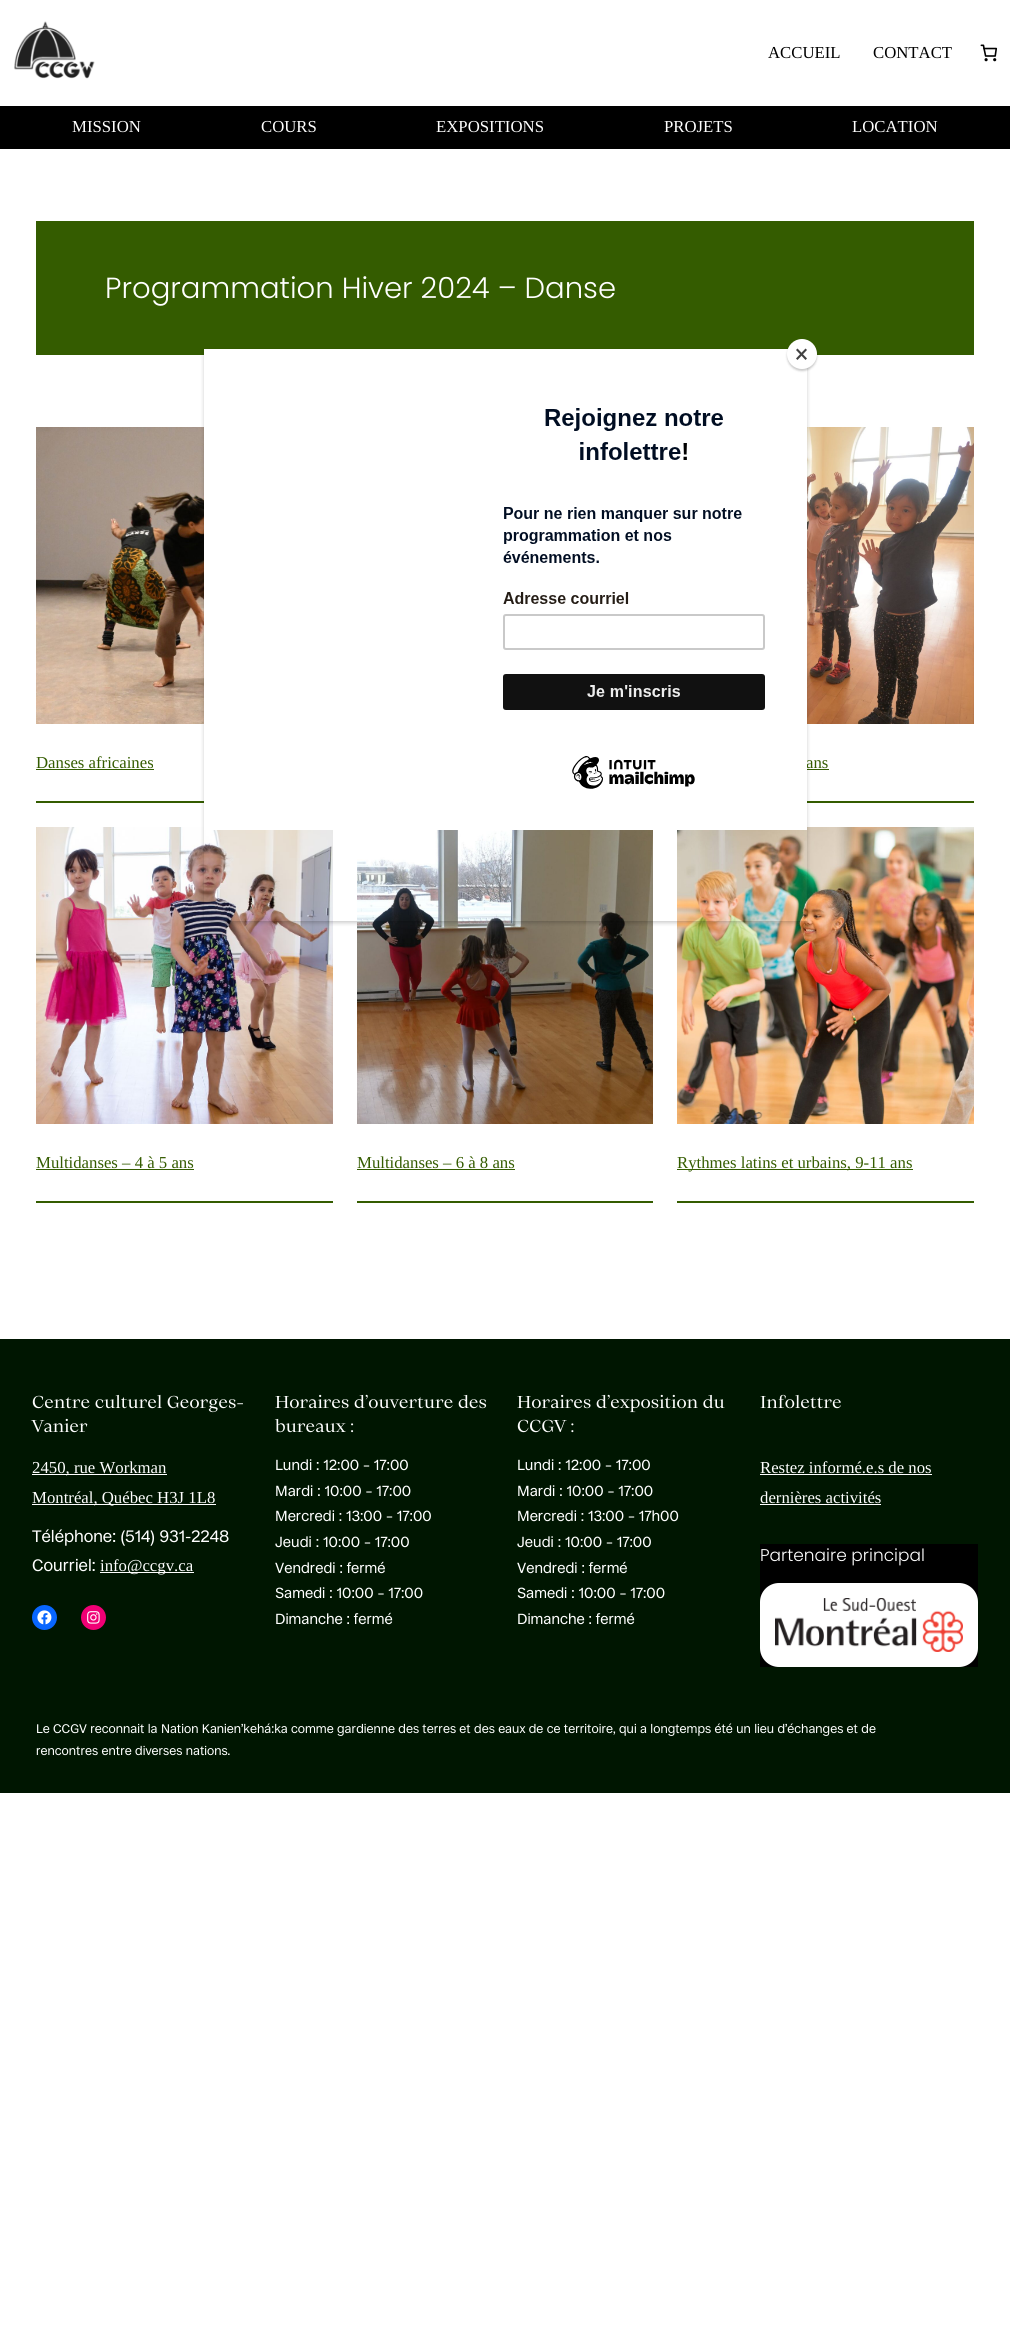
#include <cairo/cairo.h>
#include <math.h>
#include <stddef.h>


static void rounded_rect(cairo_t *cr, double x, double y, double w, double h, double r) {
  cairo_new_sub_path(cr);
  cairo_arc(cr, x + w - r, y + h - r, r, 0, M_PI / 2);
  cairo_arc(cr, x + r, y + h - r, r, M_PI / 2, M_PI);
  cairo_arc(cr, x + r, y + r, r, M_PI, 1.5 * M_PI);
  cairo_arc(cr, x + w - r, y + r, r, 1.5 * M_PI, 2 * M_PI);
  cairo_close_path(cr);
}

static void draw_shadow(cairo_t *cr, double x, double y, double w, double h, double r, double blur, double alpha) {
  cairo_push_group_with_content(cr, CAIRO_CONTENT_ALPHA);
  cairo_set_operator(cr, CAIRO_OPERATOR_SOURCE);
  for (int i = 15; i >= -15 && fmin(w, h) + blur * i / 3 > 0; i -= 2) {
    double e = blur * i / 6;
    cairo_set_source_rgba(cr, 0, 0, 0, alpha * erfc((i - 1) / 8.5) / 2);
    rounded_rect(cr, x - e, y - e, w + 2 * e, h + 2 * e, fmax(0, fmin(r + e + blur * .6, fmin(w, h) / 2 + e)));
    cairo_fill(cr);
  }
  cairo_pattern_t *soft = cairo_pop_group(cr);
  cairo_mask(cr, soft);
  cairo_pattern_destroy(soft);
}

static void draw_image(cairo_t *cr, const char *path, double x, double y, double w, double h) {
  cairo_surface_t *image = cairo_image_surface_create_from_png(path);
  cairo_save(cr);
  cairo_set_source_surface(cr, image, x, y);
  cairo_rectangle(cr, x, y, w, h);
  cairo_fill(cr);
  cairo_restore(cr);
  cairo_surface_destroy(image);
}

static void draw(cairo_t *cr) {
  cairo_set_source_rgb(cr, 1, 1, 1);
  cairo_paint(cr);
  draw_image(cr, "images/1.png", 14, 21, 81, 58);
  draw_image(cr, "images/2.png", 980, 44, 18, 18);
  cairo_set_source_rgb(cr, 0, 0, 0);
  cairo_rectangle(cr, 0, 106, 1010, 43);
  cairo_fill(cr);
  cairo_set_source_rgb(cr, 52 / 255.0, 92 / 255.0, 0);
  cairo_rectangle(cr, 36, 221, 938, 134);
  cairo_fill(cr);
  draw_image(cr, "images/3.png", 36, 427, 168, 297);
  cairo_rectangle(cr, 36, 769, 118, 1);
  cairo_fill(cr);
  cairo_rectangle(cr, 36, 801, 168, 2);
  cairo_fill(cr);
  draw_image(cr, "images/4.png", 807, 427, 167, 297);
  cairo_rectangle(cr, 807, 769, 22, 1);
  cairo_fill(cr);
  cairo_rectangle(cr, 807, 801, 167, 2);
  cairo_fill(cr);
  draw_image(cr, "images/5.png", 36, 827, 297, 297);
  cairo_rectangle(cr, 36, 1169, 158, 1);
  cairo_fill(cr);
  cairo_rectangle(cr, 36, 1201, 297, 2);
  cairo_fill(cr);
  draw_image(cr, "images/6.png", 357, 830, 296, 294);
  cairo_rectangle(cr, 357, 1169, 158, 1);
  cairo_fill(cr);
  cairo_rectangle(cr, 357, 1201, 296, 2);
  cairo_fill(cr);
  draw_image(cr, "images/7.png", 677, 827, 297, 297);
  cairo_rectangle(cr, 677, 1169, 236, 1);
  cairo_fill(cr);
  cairo_rectangle(cr, 677, 1201, 297, 2);
  cairo_fill(cr);
  cairo_set_source_rgb(cr, 0, 22 / 255.0, 1 / 255.0);
  cairo_rectangle(cr, 0, 1339, 1010, 454);
  cairo_fill(cr);
  draw_image(cr, "images/8.png", 32, 1394, 211, 19);
  draw_image(cr, "images/9.png", 30, 1418, 58, 15);
  cairo_set_source_rgb(cr, 1, 1, 1);
  cairo_rectangle(cr, 32, 1474, 135, 1);
  cairo_fill(cr);
  cairo_rectangle(cr, 32, 1504, 184, 1);
  cairo_fill(cr);
  cairo_rectangle(cr, 100, 1572, 94, 1);
  cairo_fill(cr);
  cairo_set_source_rgb(cr, 8 / 255.0, 102 / 255.0, 1);
  cairo_arc(cr, 44.5, 1617.5, 12.5, 0, 2 * M_PI);
  cairo_fill(cr);
  draw_image(cr, "images/10.png", 37, 1610, 15, 15);
  cairo_set_source_rgb(cr, 240 / 255.0, 0, 117 / 255.0);
  cairo_arc(cr, 93.5, 1617.5, 12.5, 0, 2 * M_PI);
  cairo_fill(cr);
  draw_image(cr, "images/11.png", 87, 1611, 13, 13);
  draw_image(cr, "images/12.png", 275, 1394, 212, 15);
  draw_image(cr, "images/13.png", 274, 1418, 80, 15);
  draw_image(cr, "images/14.png", 517, 1394, 208, 19);
  draw_image(cr, "images/15.png", 517, 1419, 57, 14);
  draw_image(cr, "images/16.png", 760, 1394, 81, 15);
  cairo_set_source_rgb(cr, 1, 1, 1);
  cairo_rectangle(cr, 760, 1474, 172, 1);
  cairo_fill(cr);
  cairo_rectangle(cr, 760, 1504, 121, 1);
  cairo_fill(cr);
  cairo_set_source_rgb(cr, 0, 0, 0);
  cairo_rectangle(cr, 760, 1544, 218, 123);
  cairo_fill(cr);
  cairo_set_source_rgb(cr, 1, 1, 1);
  rounded_rect(cr, 760, 1583, 218, 84, 19);
  cairo_fill(cr);
  draw_image(cr, "images/17.png", 775, 1598, 188, 54);
  cairo_save(cr);
  cairo_set_fill_rule(cr, CAIRO_FILL_RULE_EVEN_ODD);
  cairo_new_path(cr);
  cairo_move_to(cr, 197, 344);
  cairo_line_to(cr, 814, 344);
  cairo_line_to(cr, 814, 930);
  cairo_line_to(cr, 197, 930);
  cairo_close_path(cr);
  cairo_move_to(cr, 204, 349);
  cairo_line_to(cr, 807, 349);
  cairo_line_to(cr, 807, 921);
  cairo_line_to(cr, 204, 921);
  cairo_close_path(cr);
  cairo_clip(cr);
  cairo_set_source_rgb(cr, 0, 0, 0);
  draw_shadow(cr, 204, 351, 603, 572, 0, 2, 0.2);
  cairo_restore(cr);
  cairo_select_font_face(cr, "Liberation Serif", CAIRO_FONT_SLANT_NORMAL, CAIRO_FONT_WEIGHT_NORMAL);
  cairo_set_font_size(cr, 16.75);
  cairo_set_source_rgb(cr, 0, 0, 0);
  cairo_move_to(cr, 768, 58);
  cairo_show_text(cr, "ACCUEIL");
  cairo_move_to(cr, 873, 58);
  cairo_show_text(cr, "CONTACT");
  cairo_set_source_rgb(cr, 1, 1, 1);
  cairo_move_to(cr, 72, 132);
  cairo_show_text(cr, "MISSION");
  cairo_move_to(cr, 261, 132);
  cairo_show_text(cr, "COURS");
  cairo_move_to(cr, 436, 132);
  cairo_show_text(cr, "EXPOSITIONS");
  cairo_move_to(cr, 664, 132);
  cairo_show_text(cr, "PROJETS");
  cairo_move_to(cr, 852, 132);
  cairo_show_text(cr, "LOCATION");
  cairo_select_font_face(cr, "Poppins Light", CAIRO_FONT_SLANT_NORMAL, CAIRO_FONT_WEIGHT_NORMAL);
  cairo_set_font_size(cr, 29.1);
  cairo_move_to(cr, 105, 298);
  cairo_show_text(cr, "Programmation Hiver 2024 – Danse");
  cairo_select_font_face(cr, "Liberation Serif", CAIRO_FONT_SLANT_NORMAL, CAIRO_FONT_WEIGHT_NORMAL);
  cairo_set_font_size(cr, 16.75);
  cairo_set_source_rgb(cr, 52 / 255.0, 92 / 255.0, 0);
  cairo_move_to(cr, 36, 768);
  cairo_show_text(cr, "Danses africaines");
  cairo_move_to(cr, 806, 768);
  cairo_show_text(cr, "ans");
  cairo_move_to(cr, 36, 1168);
  cairo_show_text(cr, "Multidanses – 4 à 5 ans");
  cairo_move_to(cr, 357, 1168);
  cairo_show_text(cr, "Multidanses – 6 à 8 ans");
  cairo_move_to(cr, 677, 1168);
  cairo_show_text(cr, "Rythmes latins et urbains, 9-11 ans");
  cairo_set_source_rgb(cr, 1, 1, 1);
  cairo_move_to(cr, 32, 1473);
  cairo_show_text(cr, "2450, rue Workman");
  cairo_move_to(cr, 32, 1503);
  cairo_show_text(cr, "Montréal, Québec H3J 1L8");
  cairo_select_font_face(cr, "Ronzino", CAIRO_FONT_SLANT_NORMAL, CAIRO_FONT_WEIGHT_NORMAL);
  cairo_set_font_size(cr, 17);
  cairo_move_to(cr, 32, 1542);
  cairo_show_text(cr, "Téléphone: (514) 931-2248");
  cairo_move_to(cr, 32, 1571);
  cairo_show_text(cr, "Courriel:");
  cairo_select_font_face(cr, "Liberation Serif", CAIRO_FONT_SLANT_NORMAL, CAIRO_FONT_WEIGHT_NORMAL);
  cairo_set_font_size(cr, 16.75);
  cairo_move_to(cr, 100, 1571);
  cairo_show_text(cr, "info@ccgv.ca");
  cairo_select_font_face(cr, "Ronzino", CAIRO_FONT_SLANT_NORMAL, CAIRO_FONT_WEIGHT_NORMAL);
  cairo_set_font_size(cr, 15);
  cairo_move_to(cr, 275, 1470);
  cairo_show_text(cr, "Lundi : 12:00 – 17:00");
  cairo_move_to(cr, 275, 1496);
  cairo_show_text(cr, "Mardi : 10:00 – 17:00");
  cairo_move_to(cr, 275, 1521);
  cairo_show_text(cr, "Mercredi : 13:00 – 17:00");
  cairo_move_to(cr, 275, 1547);
  cairo_show_text(cr, "Jeudi : 10:00 – 17:00");
  cairo_move_to(cr, 275, 1573);
  cairo_show_text(cr, "Vendredi : fermé");
  cairo_move_to(cr, 275, 1598);
  cairo_show_text(cr, "Samedi : 10:00 – 17:00");
  cairo_move_to(cr, 275, 1624);
  cairo_show_text(cr, "Dimanche : fermé");
  cairo_move_to(cr, 517, 1470);
  cairo_show_text(cr, "Lundi : 12:00 – 17:00");
  cairo_move_to(cr, 517, 1496);
  cairo_show_text(cr, "Mardi : 10:00 – 17:00");
  cairo_move_to(cr, 517, 1521);
  cairo_show_text(cr, "Mercredi : 13:00 – 17h00");
  cairo_move_to(cr, 517, 1547);
  cairo_show_text(cr, "Jeudi : 10:00 – 17:00");
  cairo_move_to(cr, 517, 1573);
  cairo_show_text(cr, "Vendredi : fermé");
  cairo_move_to(cr, 517, 1598);
  cairo_show_text(cr, "Samedi : 10:00 – 17:00");
  cairo_move_to(cr, 517, 1624);
  cairo_show_text(cr, "Dimanche : fermé");
  cairo_select_font_face(cr, "Liberation Serif", CAIRO_FONT_SLANT_NORMAL, CAIRO_FONT_WEIGHT_NORMAL);
  cairo_set_font_size(cr, 16.75);
  cairo_move_to(cr, 760, 1473);
  cairo_show_text(cr, "Restez informé.e.s de nos");
  cairo_move_to(cr, 760, 1503);
  cairo_show_text(cr, "dernières activités");
  cairo_select_font_face(cr, "Poppins Light", CAIRO_FONT_SLANT_NORMAL, CAIRO_FONT_WEIGHT_NORMAL);
  cairo_set_font_size(cr, 17);
  cairo_move_to(cr, 760, 1561);
  cairo_show_text(cr, "Partenaire principal");
  cairo_select_font_face(cr, "Ronzino", CAIRO_FONT_SLANT_NORMAL, CAIRO_FONT_WEIGHT_NORMAL);
  cairo_set_font_size(cr, 12.8);
  cairo_move_to(cr, 36, 1733);
  cairo_show_text(cr, "Le CCGV reconnait la Nation Kanien’kehá:ka comme gardienne des terres et des eaux de ce territoire, qui a longtemps été un lieu d’échanges et de");
  cairo_move_to(cr, 36, 1755);
  cairo_show_text(cr, "rencontres entre diverses nations.");
  draw_image(cr, "images/18.png", 204, 349, 603, 481);
  cairo_set_source_rgb(cr, 0, 0, 0);
  draw_shadow(cr, 787, 341, 30, 30, 15, 1, 0.2);
  cairo_set_source_rgb(cr, 1, 1, 1);
  cairo_arc(cr, 802, 354, 15, 0, 2 * M_PI);
  cairo_fill(cr);
  cairo_set_source_rgb(cr, 65 / 255.0, 65 / 255.0, 65 / 255.0);
  cairo_new_path(cr);
  cairo_move_to(cr, 805.5, 348.5);
  cairo_line_to(cr, 807, 350);
  cairo_line_to(cr, 797.5, 360);
  cairo_line_to(cr, 796, 358.5);
  cairo_close_path(cr);
  cairo_fill(cr);
  cairo_new_path(cr);
  cairo_move_to(cr, 796, 350);
  cairo_line_to(cr, 797.5, 348.5);
  cairo_line_to(cr, 807, 358.5);
  cairo_line_to(cr, 805.5, 360);
  cairo_close_path(cr);
  cairo_fill(cr);
}

int main(void) {
  cairo_surface_t *surface = cairo_image_surface_create(CAIRO_FORMAT_RGB24, 1010, 2328);
  cairo_t *cr = cairo_create(surface);
  cairo_font_options_t *options = cairo_font_options_create();
  cairo_font_options_set_hint_metrics(options, CAIRO_HINT_METRICS_OFF);
  cairo_font_options_set_hint_style(options, CAIRO_HINT_STYLE_NONE);
  cairo_set_font_options(cr, options);
  cairo_set_miter_limit(cr, 4);
  draw(cr);
  cairo_surface_write_to_png(surface, "out.png");
  cairo_font_options_destroy(options);
  cairo_destroy(cr);
  cairo_surface_destroy(surface);
  return 0;
}
